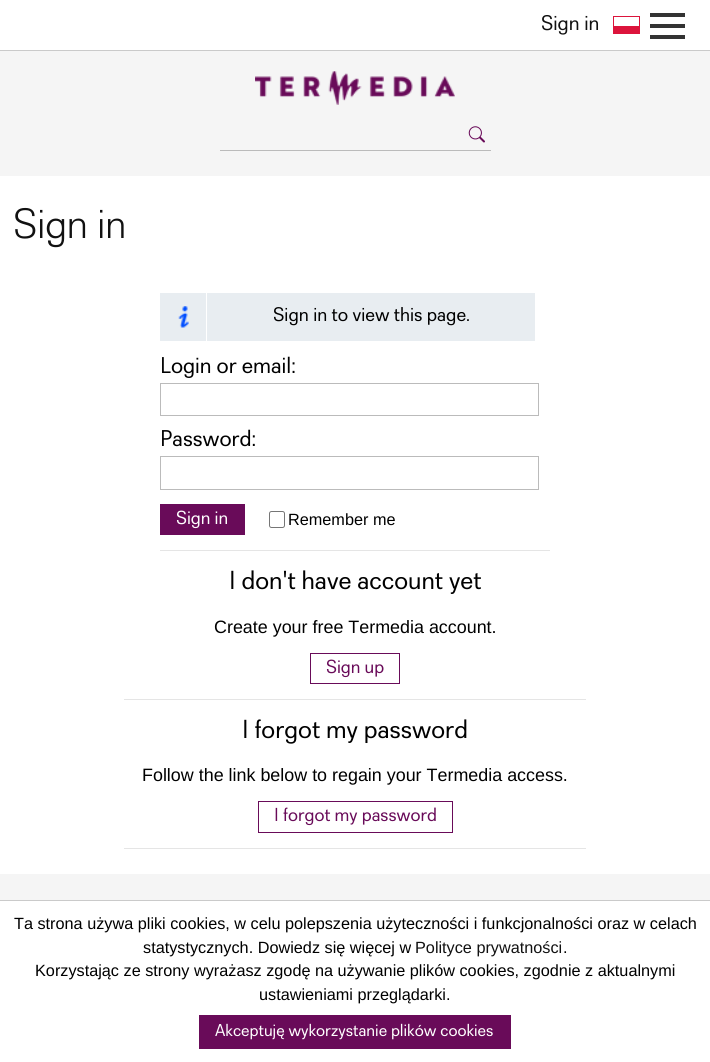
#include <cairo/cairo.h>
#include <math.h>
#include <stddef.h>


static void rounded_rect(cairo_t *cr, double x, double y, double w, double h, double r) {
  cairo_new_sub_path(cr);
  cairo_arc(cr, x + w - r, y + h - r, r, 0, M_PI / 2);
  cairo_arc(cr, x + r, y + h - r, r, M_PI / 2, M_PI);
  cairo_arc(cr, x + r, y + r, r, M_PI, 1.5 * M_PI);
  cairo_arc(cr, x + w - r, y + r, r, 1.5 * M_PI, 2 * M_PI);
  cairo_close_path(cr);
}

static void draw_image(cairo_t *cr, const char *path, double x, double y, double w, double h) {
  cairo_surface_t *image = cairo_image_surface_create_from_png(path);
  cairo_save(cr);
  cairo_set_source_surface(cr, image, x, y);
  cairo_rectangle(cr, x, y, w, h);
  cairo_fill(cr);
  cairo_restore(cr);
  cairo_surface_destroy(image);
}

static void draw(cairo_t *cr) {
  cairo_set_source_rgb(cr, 245 / 255.0, 245 / 255.0, 245 / 255.0);
  cairo_paint(cr);
  cairo_set_source_rgb(cr, 1, 1, 1);
  cairo_rectangle(cr, 0, 0, 710, 50);
  cairo_fill(cr);
  cairo_set_source_rgb(cr, 202 / 255.0, 202 / 255.0, 202 / 255.0);
  cairo_rectangle(cr, 0, 50, 710, 1);
  cairo_fill(cr);
  cairo_rectangle(cr, 613.5, 16.5, 26, 17);
  cairo_set_source_rgb(cr, 220 / 255.0, 20 / 255.0, 60 / 255.0);
  cairo_set_line_width(cr, 1);
  cairo_stroke(cr);
  cairo_rectangle(cr, 614, 26, 25, 7);
  cairo_fill(cr);
  cairo_set_source_rgb(cr, 51 / 255.0, 51 / 255.0, 51 / 255.0);
  cairo_rectangle(cr, 650, 13, 35, 4);
  cairo_fill(cr);
  cairo_rectangle(cr, 650, 24, 35, 4);
  cairo_fill(cr);
  cairo_rectangle(cr, 650, 35, 35, 4);
  cairo_fill(cr);
  draw_image(cr, "images/1.png", 255, 71, 200, 34);
  cairo_set_source_rgb(cr, 187 / 255.0, 187 / 255.0, 187 / 255.0);
  cairo_rectangle(cr, 220, 150, 271, 1);
  cairo_fill(cr);
  draw_image(cr, "images/2.png", 468, 126, 17, 17);
  cairo_set_source_rgb(cr, 1, 1, 1);
  cairo_rectangle(cr, 0, 176, 710, 698);
  cairo_fill(cr);
  cairo_set_source_rgb(cr, 229 / 255.0, 229 / 255.0, 229 / 255.0);
  cairo_rectangle(cr, 160, 550, 390, 1);
  cairo_fill(cr);
  cairo_set_source_rgb(cr, 232 / 255.0, 237 / 255.0, 241 / 255.0);
  cairo_rectangle(cr, 160, 293, 375, 48);
  cairo_fill(cr);
  draw_image(cr, "images/3.png", 178, 306, 11, 22);
  cairo_set_source_rgb(cr, 1, 1, 1);
  cairo_rectangle(cr, 206, 293, 1, 48);
  cairo_fill(cr);
  cairo_rectangle(cr, 160.5, 383.5, 378, 32);
  cairo_set_source_rgb(cr, 187 / 255.0, 187 / 255.0, 187 / 255.0);
  cairo_stroke(cr);
  cairo_rectangle(cr, 160.5, 456.5, 378, 33);
  cairo_stroke(cr);
  cairo_set_source_rgb(cr, 105 / 255.0, 11 / 255.0, 89 / 255.0);
  cairo_rectangle(cr, 160, 504, 85, 31);
  cairo_fill(cr);
  rounded_rect(cr, 269.5, 511.5, 15, 16, 2);
  cairo_set_source_rgb(cr, 118 / 255.0, 118 / 255.0, 118 / 255.0);
  cairo_stroke(cr);
  cairo_set_source_rgb(cr, 229 / 255.0, 229 / 255.0, 229 / 255.0);
  cairo_rectangle(cr, 124, 699, 462, 1);
  cairo_fill(cr);
  cairo_rectangle(cr, 310.5, 653.5, 89, 30);
  cairo_set_source_rgb(cr, 105 / 255.0, 11 / 255.0, 89 / 255.0);
  cairo_stroke(cr);
  cairo_set_source_rgb(cr, 229 / 255.0, 229 / 255.0, 229 / 255.0);
  cairo_rectangle(cr, 124, 848, 462, 1);
  cairo_fill(cr);
  cairo_rectangle(cr, 258.5, 801.5, 194, 31);
  cairo_set_source_rgb(cr, 105 / 255.0, 11 / 255.0, 89 / 255.0);
  cairo_stroke(cr);
  cairo_set_source_rgb(cr, 1, 1, 1);
  cairo_rectangle(cr, 0, 901, 710, 161);
  cairo_fill(cr);
  cairo_set_source_rgb(cr, 202 / 255.0, 202 / 255.0, 202 / 255.0);
  cairo_rectangle(cr, 0, 900, 710, 1);
  cairo_fill(cr);
  cairo_set_source_rgb(cr, 105 / 255.0, 11 / 255.0, 89 / 255.0);
  cairo_rectangle(cr, 199, 1015, 312, 34);
  cairo_fill(cr);
  cairo_select_font_face(cr, "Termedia", CAIRO_FONT_SLANT_NORMAL, CAIRO_FONT_WEIGHT_NORMAL);
  cairo_set_font_size(cr, 21);
  cairo_set_source_rgb(cr, 17 / 255.0, 17 / 255.0, 17 / 255.0);
  cairo_move_to(cr, 541, 30);
  cairo_show_text(cr, "Sign in");
  cairo_select_font_face(cr, "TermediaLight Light", CAIRO_FONT_SLANT_NORMAL, CAIRO_FONT_WEIGHT_NORMAL);
  cairo_set_font_size(cr, 42);
  cairo_move_to(cr, 13, 238);
  cairo_show_text(cr, "Sign in");
  cairo_select_font_face(cr, "Termedia", CAIRO_FONT_SLANT_NORMAL, CAIRO_FONT_WEIGHT_NORMAL);
  cairo_set_font_size(cr, 19.5);
  cairo_set_source_rgb(cr, 0, 0, 0);
  cairo_move_to(cr, 273, 321);
  cairo_show_text(cr, "Sign in to view this page.");
  cairo_set_font_size(cr, 22.75);
  cairo_move_to(cr, 160, 373);
  cairo_show_text(cr, "Login or email:");
  cairo_move_to(cr, 160, 446);
  cairo_show_text(cr, "Password:");
  cairo_set_font_size(cr, 18.75);
  cairo_set_source_rgb(cr, 1, 1, 1);
  cairo_move_to(cr, 176, 524);
  cairo_show_text(cr, "Sign in");
  cairo_select_font_face(cr, "Liberation Sans", CAIRO_FONT_SLANT_NORMAL, CAIRO_FONT_WEIGHT_NORMAL);
  cairo_set_font_size(cr, 16.25);
  cairo_set_source_rgb(cr, 0, 0, 0);
  cairo_move_to(cr, 288, 525);
  cairo_show_text(cr, "Remember me");
  cairo_select_font_face(cr, "Termedia", CAIRO_FONT_SLANT_NORMAL, CAIRO_FONT_WEIGHT_NORMAL);
  cairo_set_font_size(cr, 26);
  cairo_move_to(cr, 229, 589);
  cairo_show_text(cr, "I don't have account yet");
  cairo_select_font_face(cr, "Liberation Sans", CAIRO_FONT_SLANT_NORMAL, CAIRO_FONT_WEIGHT_NORMAL);
  cairo_set_font_size(cr, 17.9);
  cairo_move_to(cr, 214, 633);
  cairo_show_text(cr, "Create your free Termedia account.");
  cairo_select_font_face(cr, "Termedia", CAIRO_FONT_SLANT_NORMAL, CAIRO_FONT_WEIGHT_NORMAL);
  cairo_set_font_size(cr, 18.75);
  cairo_set_source_rgb(cr, 105 / 255.0, 11 / 255.0, 89 / 255.0);
  cairo_move_to(cr, 326, 673);
  cairo_show_text(cr, "Sign up");
  cairo_set_font_size(cr, 26);
  cairo_set_source_rgb(cr, 0, 0, 0);
  cairo_move_to(cr, 242, 738);
  cairo_show_text(cr, "I forgot my password");
  cairo_select_font_face(cr, "Liberation Sans", CAIRO_FONT_SLANT_NORMAL, CAIRO_FONT_WEIGHT_NORMAL);
  cairo_set_font_size(cr, 17.9);
  cairo_move_to(cr, 142, 781);
  cairo_show_text(cr, "Follow the link below to regain your Termedia access.");
  cairo_select_font_face(cr, "Termedia", CAIRO_FONT_SLANT_NORMAL, CAIRO_FONT_WEIGHT_NORMAL);
  cairo_set_font_size(cr, 18.75);
  cairo_set_source_rgb(cr, 105 / 255.0, 11 / 255.0, 89 / 255.0);
  cairo_move_to(cr, 274, 821);
  cairo_show_text(cr, "I forgot my password");
  cairo_select_font_face(cr, "Liberation Sans", CAIRO_FONT_SLANT_NORMAL, CAIRO_FONT_WEIGHT_NORMAL);
  cairo_set_font_size(cr, 16.25);
  cairo_set_source_rgb(cr, 0, 0, 0);
  cairo_move_to(cr, 14, 929);
  cairo_show_text(cr, "Ta strona używa pliki cookies, w celu polepszenia użyteczności i funkcjonalności oraz w celach");
  cairo_move_to(cr, 143, 953);
  cairo_show_text(cr, "statystycznych. Dowiedz się więcej w");
  cairo_set_source_rgb(cr, 17 / 255.0, 17 / 255.0, 17 / 255.0);
  cairo_move_to(cr, 415, 953);
  cairo_show_text(cr, "Polityce prywatności");
  cairo_set_source_rgb(cr, 0, 0, 0);
  cairo_move_to(cr, 563, 953);
  cairo_show_text(cr, ".");
  cairo_move_to(cr, 35, 976);
  cairo_show_text(cr, "Korzystając ze strony wyrażasz zgodę na używanie plików cookies, zgodnie z aktualnymi");
  cairo_move_to(cr, 259, 1000);
  cairo_show_text(cr, "ustawieniami przeglądarki.");
  cairo_select_font_face(cr, "Termedia", CAIRO_FONT_SLANT_NORMAL, CAIRO_FONT_WEIGHT_NORMAL);
  cairo_set_font_size(cr, 17);
  cairo_set_source_rgb(cr, 1, 1, 1);
  cairo_move_to(cr, 215, 1036);
  cairo_show_text(cr, "Akceptuję wykorzystanie plików cookies");
}

int main(void) {
  cairo_surface_t *surface = cairo_image_surface_create(CAIRO_FORMAT_RGB24, 710, 1062);
  cairo_t *cr = cairo_create(surface);
  cairo_font_options_t *options = cairo_font_options_create();
  cairo_font_options_set_hint_metrics(options, CAIRO_HINT_METRICS_OFF);
  cairo_font_options_set_hint_style(options, CAIRO_HINT_STYLE_NONE);
  cairo_set_font_options(cr, options);
  cairo_set_miter_limit(cr, 4);
  draw(cr);
  cairo_surface_write_to_png(surface, "out.png");
  cairo_font_options_destroy(options);
  cairo_destroy(cr);
  cairo_surface_destroy(surface);
  return 0;
}
